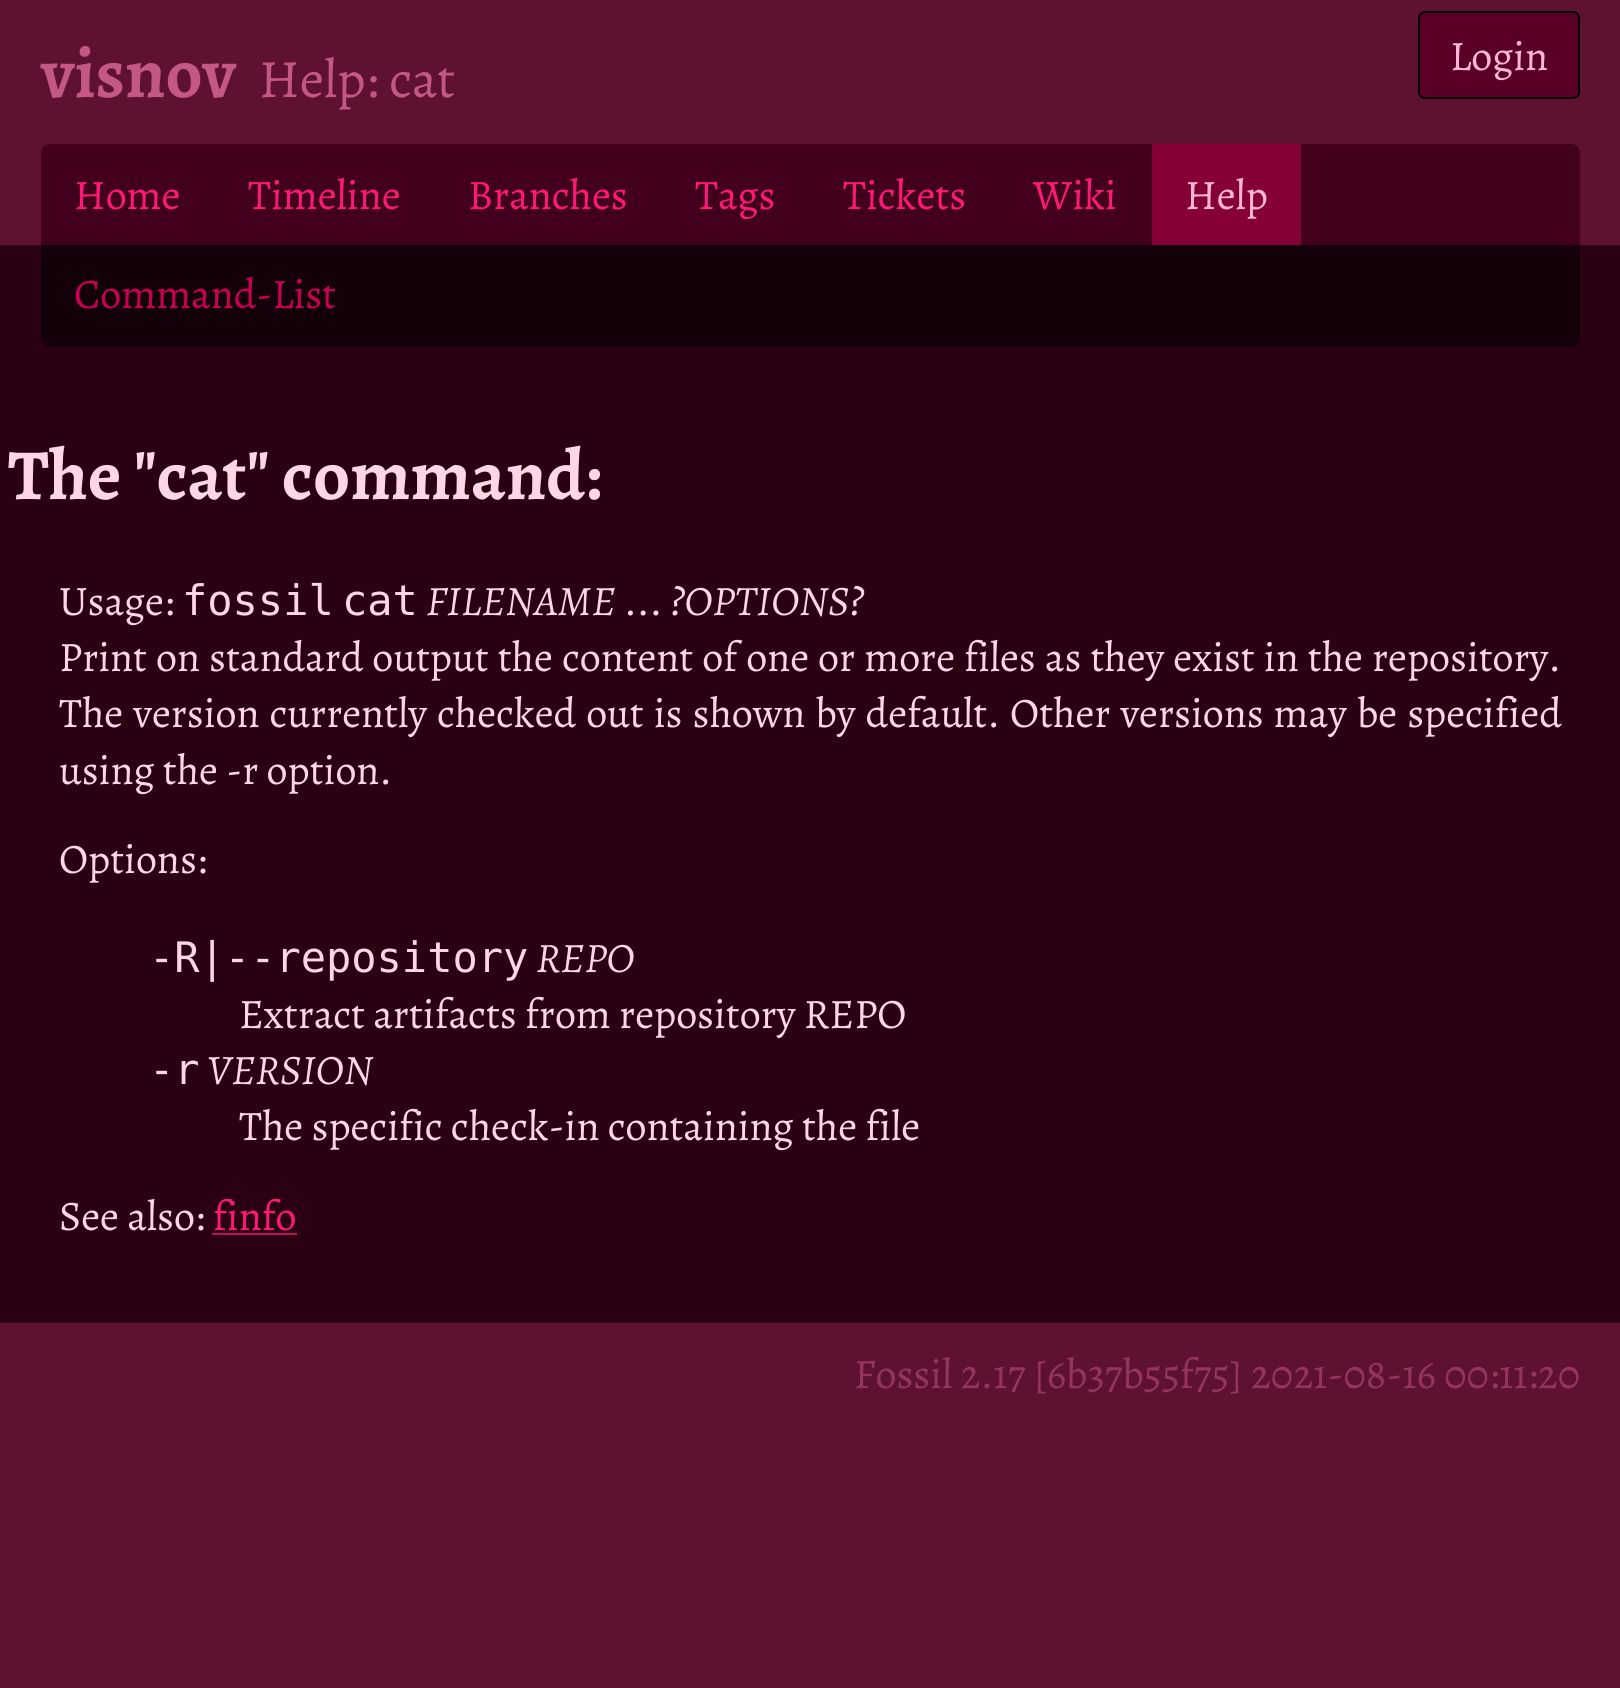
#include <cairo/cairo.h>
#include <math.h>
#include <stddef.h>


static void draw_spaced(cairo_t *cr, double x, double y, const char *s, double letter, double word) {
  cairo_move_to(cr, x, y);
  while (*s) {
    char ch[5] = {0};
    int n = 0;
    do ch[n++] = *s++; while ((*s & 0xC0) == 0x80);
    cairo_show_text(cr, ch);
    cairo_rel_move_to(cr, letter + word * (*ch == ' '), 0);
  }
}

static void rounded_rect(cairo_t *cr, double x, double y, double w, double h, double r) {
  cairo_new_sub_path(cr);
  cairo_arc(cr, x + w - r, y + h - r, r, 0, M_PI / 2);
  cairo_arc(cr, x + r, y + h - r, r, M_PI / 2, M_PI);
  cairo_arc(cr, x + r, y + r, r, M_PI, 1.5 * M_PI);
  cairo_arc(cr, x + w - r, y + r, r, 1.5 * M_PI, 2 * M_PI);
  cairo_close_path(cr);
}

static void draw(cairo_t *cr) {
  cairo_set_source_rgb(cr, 94 / 255.0, 17 / 255.0, 49 / 255.0);
  cairo_paint(cr);
  cairo_set_source_rgb(cr, 90 / 255.0, 0, 38 / 255.0);
  rounded_rect(cr, 1419, 12, 160, 86, 6);
  cairo_fill_preserve(cr);
  cairo_set_source_rgb(cr, 0, 0, 0);
  cairo_stroke(cr);
  cairo_set_source_rgb(cr, 67 / 255.0, 0, 28 / 255.0);
  cairo_new_path(cr);
  cairo_move_to(cr, 50, 144);
  cairo_line_to(cr, 1571, 144);
  cairo_curve_to(cr, 1576, 144, 1580, 148, 1580, 153);
  cairo_line_to(cr, 1580, 245);
  cairo_line_to(cr, 41, 245);
  cairo_line_to(cr, 41, 153);
  cairo_curve_to(cr, 41, 148, 45, 144, 50, 144);
  cairo_close_path(cr);
  cairo_fill(cr);
  cairo_set_source_rgb(cr, 133 / 255.0, 0, 55 / 255.0);
  cairo_rectangle(cr, 1152, 144, 149, 101);
  cairo_fill(cr);
  cairo_set_source_rgb(cr, 43 / 255.0, 0, 18 / 255.0);
  cairo_rectangle(cr, 0, 245, 1620, 1078);
  cairo_fill(cr);
  cairo_set_source_rgb(cr, 20 / 255.0, 0, 8 / 255.0);
  cairo_new_path(cr);
  cairo_move_to(cr, 41, 245);
  cairo_line_to(cr, 1580, 245);
  cairo_line_to(cr, 1580, 338);
  cairo_curve_to(cr, 1580, 343, 1576, 347, 1571, 347);
  cairo_line_to(cr, 50, 347);
  cairo_curve_to(cr, 45, 347, 41, 343, 41, 338);
  cairo_close_path(cr);
  cairo_fill(cr);
  cairo_set_source_rgb(cr, 191 / 255.0, 18 / 255.0, 89 / 255.0);
  cairo_rectangle(cr, 212, 1233, 85, 2);
  cairo_fill(cr);
  cairo_select_font_face(cr, "Alegreya", CAIRO_FONT_SLANT_NORMAL, CAIRO_FONT_WEIGHT_BOLD);
  cairo_set_font_size(cr, 72);
  cairo_set_source_rgb(cr, 195 / 255.0, 88 / 255.0, 132 / 255.0);
  cairo_move_to(cr, 41, 97);
  cairo_show_text(cr, "visnov");
  cairo_select_font_face(cr, "Alegreya", CAIRO_FONT_SLANT_NORMAL, CAIRO_FONT_WEIGHT_NORMAL);
  cairo_set_font_size(cr, 54);
  cairo_move_to(cr, 259, 97);
  cairo_show_text(cr, "Help: cat");
  cairo_set_font_size(cr, 42);
  cairo_set_source_rgb(cr, 1, 183 / 255.0, 213 / 255.0);
  cairo_move_to(cr, 1450, 70);
  cairo_show_text(cr, "Login");
  cairo_set_source_rgb(cr, 1, 25 / 255.0, 119 / 255.0);
  cairo_move_to(cr, 74, 209);
  cairo_show_text(cr, "Home");
  cairo_move_to(cr, 248, 209);
  cairo_show_text(cr, "Timeline");
  cairo_move_to(cr, 468, 209);
  cairo_show_text(cr, "Branches");
  cairo_move_to(cr, 695, 209);
  cairo_show_text(cr, "Tags");
  cairo_move_to(cr, 843, 209);
  cairo_show_text(cr, "Tickets");
  cairo_move_to(cr, 1033, 209);
  cairo_show_text(cr, "Wiki");
  cairo_set_source_rgb(cr, 1, 183 / 255.0, 213 / 255.0);
  cairo_move_to(cr, 1185, 209);
  cairo_show_text(cr, "Help");
  cairo_set_source_rgb(cr, 202 / 255.0, 0, 83 / 255.0);
  cairo_move_to(cr, 74, 308);
  cairo_show_text(cr, "Command-List");
  cairo_select_font_face(cr, "Alegreya", CAIRO_FONT_SLANT_NORMAL, CAIRO_FONT_WEIGHT_BOLD);
  cairo_set_font_size(cr, 72);
  cairo_set_source_rgb(cr, 1, 214 / 255.0, 230 / 255.0);
  cairo_move_to(cr, 8, 499);
  cairo_show_text(cr, "The \"cat\" command:");
  cairo_select_font_face(cr, "Alegreya", CAIRO_FONT_SLANT_NORMAL, CAIRO_FONT_WEIGHT_NORMAL);
  cairo_set_font_size(cr, 42);
  cairo_move_to(cr, 59, 615);
  cairo_show_text(cr, "Usage:");
  cairo_select_font_face(cr, "DejaVu Sans Mono", CAIRO_FONT_SLANT_NORMAL, CAIRO_FONT_WEIGHT_NORMAL);
  cairo_move_to(cr, 182, 615);
  cairo_show_text(cr, "fossil");
  cairo_move_to(cr, 342, 615);
  cairo_show_text(cr, "cat");
  cairo_select_font_face(cr, "Alegreya", CAIRO_FONT_SLANT_ITALIC, CAIRO_FONT_WEIGHT_NORMAL);
  cairo_move_to(cr, 426, 615);
  cairo_show_text(cr, "FILENAME");
  cairo_select_font_face(cr, "Alegreya", CAIRO_FONT_SLANT_NORMAL, CAIRO_FONT_WEIGHT_NORMAL);
  cairo_move_to(cr, 624, 615);
  cairo_show_text(cr, "...");
  cairo_select_font_face(cr, "Alegreya", CAIRO_FONT_SLANT_ITALIC, CAIRO_FONT_WEIGHT_NORMAL);
  cairo_move_to(cr, 670, 615);
  cairo_show_text(cr, "?OPTIONS?");
  cairo_select_font_face(cr, "Alegreya", CAIRO_FONT_SLANT_NORMAL, CAIRO_FONT_WEIGHT_NORMAL);
  draw_spaced(cr, 59, 671, "Print on standard output the content of one or more files as they exist in the repository.", 0, 0.8);
  draw_spaced(cr, 59, 727, "The version currently checked out is shown by default. Other versions may be specified", 0, 1.75);
  cairo_move_to(cr, 59, 784);
  cairo_show_text(cr, "using the -r option.");
  cairo_move_to(cr, 59, 873);
  cairo_show_text(cr, "Options:");
  cairo_select_font_face(cr, "DejaVu Sans Mono", CAIRO_FONT_SLANT_NORMAL, CAIRO_FONT_WEIGHT_NORMAL);
  cairo_move_to(cr, 149, 972);
  cairo_show_text(cr, "-R|--repository");
  cairo_select_font_face(cr, "Alegreya", CAIRO_FONT_SLANT_ITALIC, CAIRO_FONT_WEIGHT_NORMAL);
  cairo_move_to(cr, 536, 972);
  cairo_show_text(cr, "REPO");
  cairo_select_font_face(cr, "Alegreya", CAIRO_FONT_SLANT_NORMAL, CAIRO_FONT_WEIGHT_NORMAL);
  cairo_move_to(cr, 239, 1028);
  cairo_show_text(cr, "Extract artifacts from repository REPO");
  cairo_select_font_face(cr, "DejaVu Sans Mono", CAIRO_FONT_SLANT_NORMAL, CAIRO_FONT_WEIGHT_NORMAL);
  cairo_move_to(cr, 149, 1084);
  cairo_show_text(cr, "-r");
  cairo_select_font_face(cr, "Alegreya", CAIRO_FONT_SLANT_ITALIC, CAIRO_FONT_WEIGHT_NORMAL);
  cairo_move_to(cr, 207, 1084);
  cairo_show_text(cr, "VERSION");
  cairo_select_font_face(cr, "Alegreya", CAIRO_FONT_SLANT_NORMAL, CAIRO_FONT_WEIGHT_NORMAL);
  cairo_move_to(cr, 239, 1140);
  cairo_show_text(cr, "The specific check-in containing the file");
  cairo_move_to(cr, 59, 1230);
  cairo_show_text(cr, "See also:");
  cairo_set_source_rgb(cr, 1, 25 / 255.0, 119 / 255.0);
  cairo_move_to(cr, 213, 1230);
  cairo_show_text(cr, "finfo");
  cairo_set_source_rgb(cr, 147 / 255.0, 53 / 255.0, 92 / 255.0);
  cairo_move_to(cr, 854, 1388);
  cairo_show_text(cr, "Fossil 2.17 [6b37b55f75] 2021-08-16 00:11:20");
}

int main(void) {
  cairo_surface_t *surface = cairo_image_surface_create(CAIRO_FORMAT_RGB24, 1620, 1688);
  cairo_t *cr = cairo_create(surface);
  cairo_font_options_t *options = cairo_font_options_create();
  cairo_font_options_set_hint_metrics(options, CAIRO_HINT_METRICS_OFF);
  cairo_font_options_set_hint_style(options, CAIRO_HINT_STYLE_NONE);
  cairo_set_font_options(cr, options);
  cairo_set_miter_limit(cr, 4);
  draw(cr);
  cairo_surface_write_to_png(surface, "out.png");
  cairo_font_options_destroy(options);
  cairo_destroy(cr);
  cairo_surface_destroy(surface);
  return 0;
}
